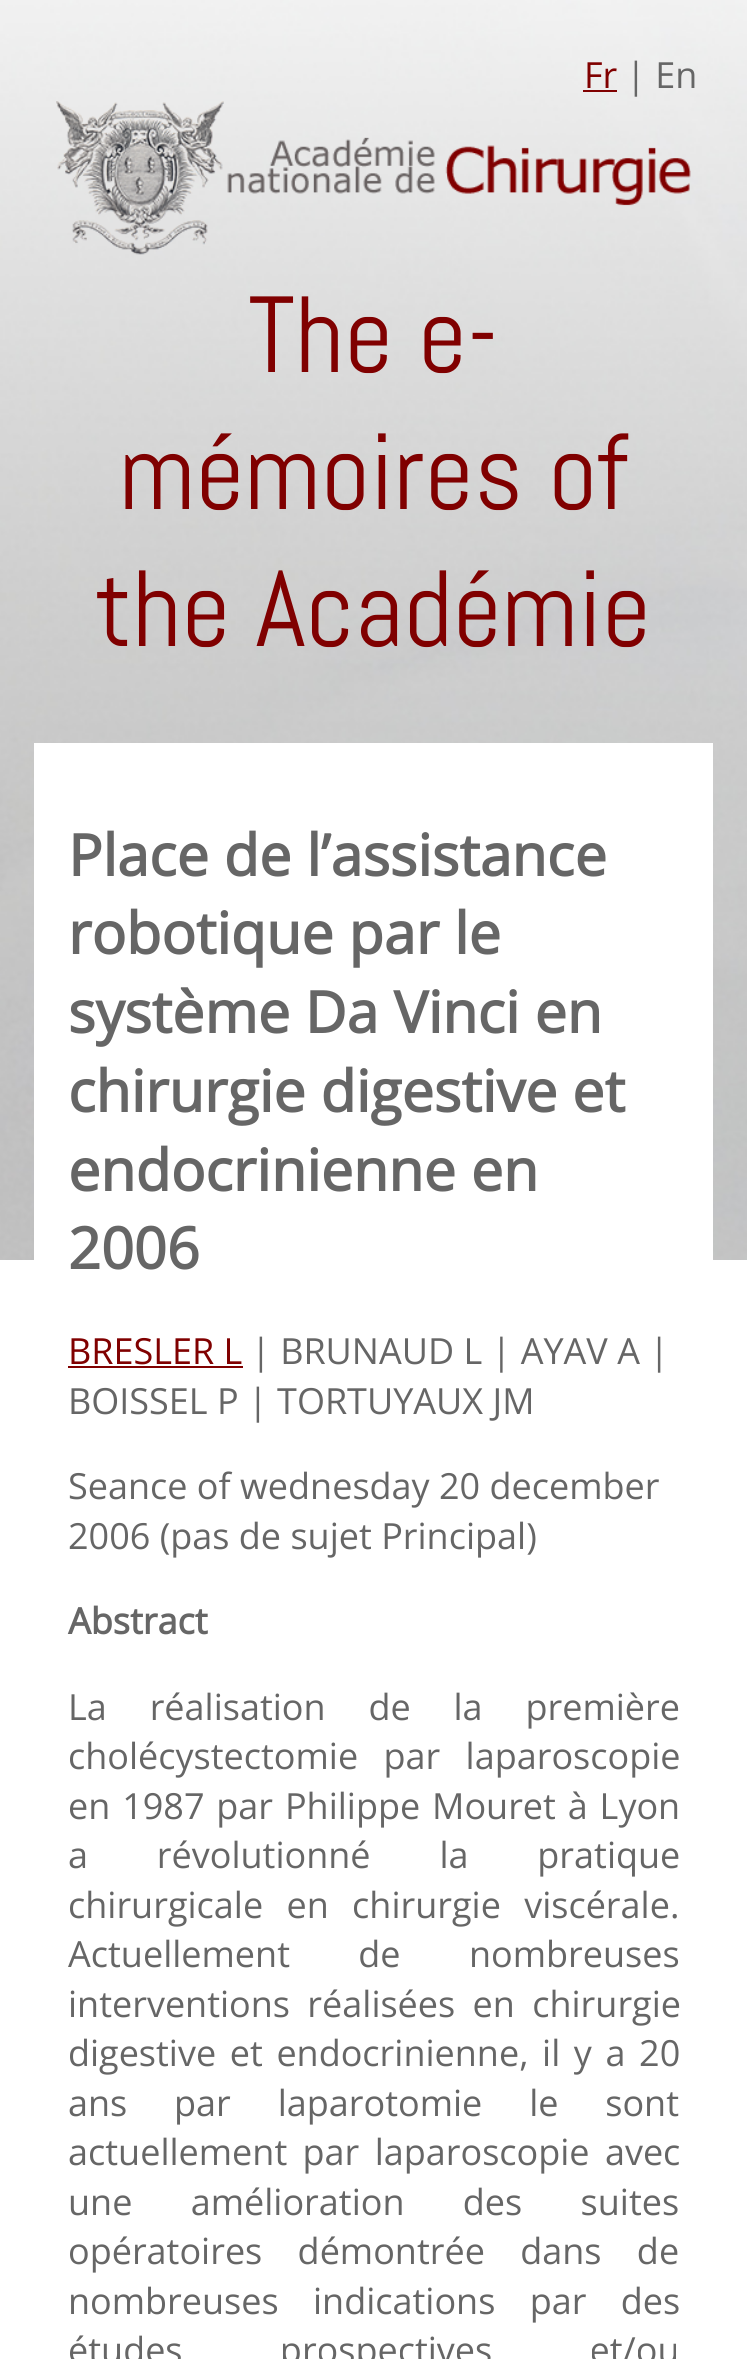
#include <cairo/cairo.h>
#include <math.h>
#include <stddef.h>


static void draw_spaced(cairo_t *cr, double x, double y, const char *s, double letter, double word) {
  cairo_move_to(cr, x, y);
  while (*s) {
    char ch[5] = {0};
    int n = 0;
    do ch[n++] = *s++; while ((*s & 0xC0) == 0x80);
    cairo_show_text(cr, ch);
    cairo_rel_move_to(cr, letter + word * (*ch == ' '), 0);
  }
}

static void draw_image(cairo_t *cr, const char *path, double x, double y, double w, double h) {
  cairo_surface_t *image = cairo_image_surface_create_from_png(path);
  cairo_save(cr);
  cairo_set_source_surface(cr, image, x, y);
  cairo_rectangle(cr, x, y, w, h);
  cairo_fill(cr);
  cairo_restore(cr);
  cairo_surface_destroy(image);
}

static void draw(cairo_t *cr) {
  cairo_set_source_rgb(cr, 1, 1, 1);
  cairo_paint(cr);
  draw_image(cr, "images/1.png", 0, 0, 747, 1260);
  cairo_set_source_rgb(cr, 128 / 255.0, 0, 0);
  cairo_rectangle(cr, 583, 90, 34, 2);
  cairo_fill(cr);
  draw_image(cr, "images/2.png", 56, 101, 635, 154);
  cairo_set_source_rgb(cr, 1, 1, 1);
  cairo_rectangle(cr, 34, 743, 679, 517);
  cairo_fill(cr);
  cairo_set_source_rgb(cr, 128 / 255.0, 0, 0);
  cairo_rectangle(cr, 68, 1366, 175, 2);
  cairo_fill(cr);
  cairo_select_font_face(cr, "Open Sans", CAIRO_FONT_SLANT_NORMAL, CAIRO_FONT_WEIGHT_NORMAL);
  cairo_set_font_size(cr, 36);
  cairo_move_to(cr, 584, 88);
  cairo_show_text(cr, "Fr");
  cairo_set_source_rgb(cr, 102 / 255.0, 102 / 255.0, 102 / 255.0);
  cairo_move_to(cr, 626, 88);
  cairo_show_text(cr, "| En");
  cairo_select_font_face(cr, "Abel", CAIRO_FONT_SLANT_NORMAL, CAIRO_FONT_WEIGHT_NORMAL);
  cairo_set_font_size(cr, 108);
  cairo_set_source_rgb(cr, 128 / 255.0, 0, 0);
  cairo_move_to(cr, 248, 372);
  cairo_show_text(cr, "The e-");
  cairo_move_to(cr, 119, 509);
  cairo_show_text(cr, "mémoires of");
  cairo_move_to(cr, 95, 646);
  cairo_show_text(cr, "the Académie");
  cairo_select_font_face(cr, "Open Sans", CAIRO_FONT_SLANT_NORMAL, CAIRO_FONT_WEIGHT_BOLD);
  cairo_set_font_size(cr, 57.5);
  cairo_set_source_rgb(cr, 102 / 255.0, 102 / 255.0, 102 / 255.0);
  cairo_move_to(cr, 68, 876);
  cairo_show_text(cr, "Place de l’assistance");
  cairo_move_to(cr, 68, 954);
  cairo_show_text(cr, "robotique par le");
  cairo_move_to(cr, 68, 1033);
  cairo_show_text(cr, "système Da Vinci en");
  cairo_move_to(cr, 68, 1112);
  cairo_show_text(cr, "chirurgie digestive et");
  cairo_move_to(cr, 68, 1191);
  cairo_show_text(cr, "endocrinienne en");
  cairo_move_to(cr, 68, 1269);
  cairo_show_text(cr, "2006");
  cairo_select_font_face(cr, "Open Sans", CAIRO_FONT_SLANT_NORMAL, CAIRO_FONT_WEIGHT_NORMAL);
  cairo_set_font_size(cr, 36);
  cairo_set_source_rgb(cr, 128 / 255.0, 0, 0);
  cairo_move_to(cr, 68, 1364);
  cairo_show_text(cr, "BRESLER L");
  cairo_set_source_rgb(cr, 102 / 255.0, 102 / 255.0, 102 / 255.0);
  cairo_move_to(cr, 251, 1364);
  cairo_show_text(cr, "| BRUNAUD L | AYAV A |");
  cairo_move_to(cr, 68, 1414);
  cairo_show_text(cr, "BOISSEL P | TORTUYAUX JM");
  cairo_move_to(cr, 68, 1499);
  cairo_show_text(cr, "Seance of wednesday 20 december");
  cairo_move_to(cr, 68, 1549);
  cairo_show_text(cr, "2006 (pas de sujet Principal)");
  cairo_select_font_face(cr, "Open Sans", CAIRO_FONT_SLANT_NORMAL, CAIRO_FONT_WEIGHT_BOLD);
  cairo_move_to(cr, 68, 1634);
  cairo_show_text(cr, "Abstract");
  cairo_select_font_face(cr, "Open Sans", CAIRO_FONT_SLANT_NORMAL, CAIRO_FONT_WEIGHT_NORMAL);
  draw_spaced(cr, 68, 1720, "La réalisation de la première", 0, 33.5);
  draw_spaced(cr, 68, 1769, "cholécystectomie par laparoscopie", 0, 16);
  draw_spaced(cr, 68, 1819, "en 1987 par Philippe Mouret à Lyon", 0, 2.5);
  draw_spaced(cr, 68, 1868, "a révolutionné la pratique", 0, 59.5);
  draw_spaced(cr, 68, 1918, "chirurgicale en chirurgie viscérale.", 0, 14);
  draw_spaced(cr, 68, 1967, "Actuellement de nombreuses", 0, 59);
  draw_spaced(cr, 68, 2017, "interventions réalisées en chirurgie", 0, 8);
  draw_spaced(cr, 68, 2066, "digestive et endocrinienne, il y a 20", 0, 4.25);
  draw_spaced(cr, 68, 2116, "ans par laparotomie le sont", 0, 37.5);
  draw_spaced(cr, 68, 2165, "actuellement par laparoscopie avec", 0, 6);
  draw_spaced(cr, 68, 2215, "une amélioration des suites", 0, 49);
  draw_spaced(cr, 68, 2264, "opératoires démontrée dans de", 0, 26);
  draw_spaced(cr, 68, 2314, "nombreuses indications par des", 0, 25);
  draw_spaced(cr, 68, 2363, "études prospectives et/ou", 0, 88);
}

int main(void) {
  cairo_surface_t *surface = cairo_image_surface_create(CAIRO_FORMAT_RGB24, 747, 2359);
  cairo_t *cr = cairo_create(surface);
  cairo_font_options_t *options = cairo_font_options_create();
  cairo_font_options_set_hint_metrics(options, CAIRO_HINT_METRICS_OFF);
  cairo_font_options_set_hint_style(options, CAIRO_HINT_STYLE_NONE);
  cairo_set_font_options(cr, options);
  cairo_set_miter_limit(cr, 4);
  draw(cr);
  cairo_surface_write_to_png(surface, "out.png");
  cairo_font_options_destroy(options);
  cairo_destroy(cr);
  cairo_surface_destroy(surface);
  return 0;
}
